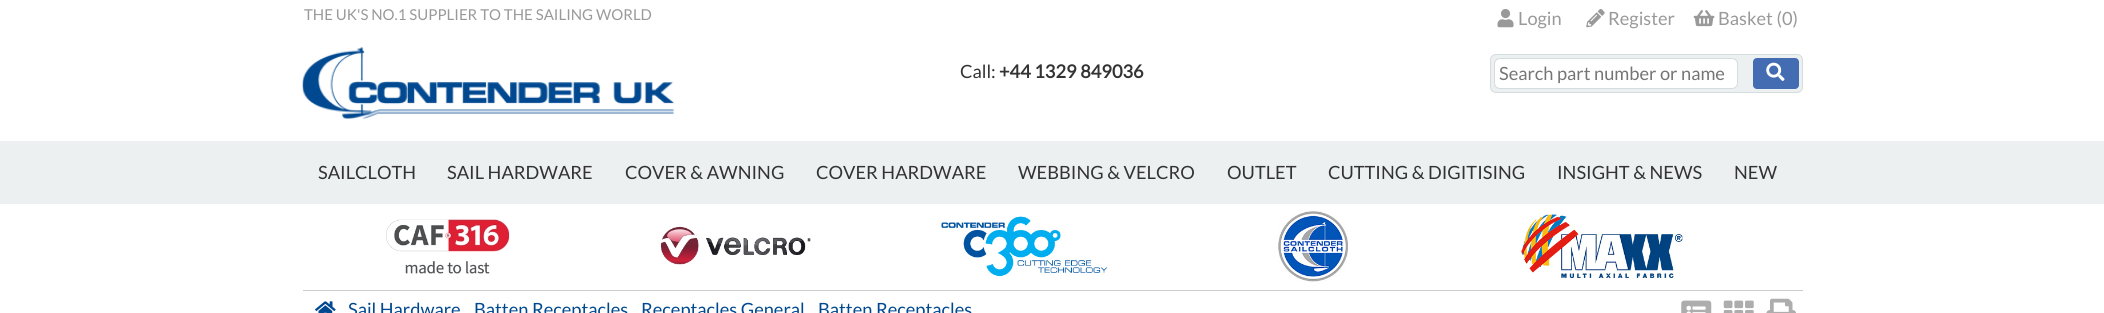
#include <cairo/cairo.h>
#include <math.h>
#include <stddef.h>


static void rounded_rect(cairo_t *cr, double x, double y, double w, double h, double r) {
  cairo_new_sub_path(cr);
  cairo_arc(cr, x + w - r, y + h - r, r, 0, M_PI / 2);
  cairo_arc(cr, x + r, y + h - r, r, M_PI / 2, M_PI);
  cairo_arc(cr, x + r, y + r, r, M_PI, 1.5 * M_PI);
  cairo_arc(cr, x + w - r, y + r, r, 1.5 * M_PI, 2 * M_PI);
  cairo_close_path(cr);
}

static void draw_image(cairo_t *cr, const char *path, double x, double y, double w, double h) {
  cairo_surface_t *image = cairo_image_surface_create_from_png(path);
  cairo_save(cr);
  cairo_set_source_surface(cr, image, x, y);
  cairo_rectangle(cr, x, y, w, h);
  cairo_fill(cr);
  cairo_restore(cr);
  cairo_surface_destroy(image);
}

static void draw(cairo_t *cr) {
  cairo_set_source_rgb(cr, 1, 1, 1);
  cairo_paint(cr);
  draw_image(cr, "images/1.png", 1497, 9, 17, 19);
  draw_image(cr, "images/2.png", 1586, 9, 19, 19);
  draw_image(cr, "images/3.png", 1693, 10, 22, 17);
  draw_image(cr, "images/4.png", 302, 47, 372, 72);
  cairo_set_source_rgb(cr, 236 / 255.0, 240 / 255.0, 241 / 255.0);
  rounded_rect(cr, 1490.5, 54.5, 312, 38, 5.5);
  cairo_fill_preserve(cr);
  cairo_set_source_rgb(cr, 211 / 255.0, 220 / 255.0, 222 / 255.0);
  cairo_set_line_width(cr, 1);
  cairo_stroke(cr);
  cairo_set_source_rgb(cr, 1, 1, 1);
  rounded_rect(cr, 1494.5, 58.5, 243, 30, 5.5);
  cairo_fill_preserve(cr);
  cairo_set_source_rgb(cr, 211 / 255.0, 220 / 255.0, 222 / 255.0);
  cairo_stroke(cr);
  cairo_set_source_rgb(cr, 68 / 255.0, 108 / 255.0, 179 / 255.0);
  rounded_rect(cr, 1753, 58, 46, 31, 4);
  cairo_fill(cr);
  draw_image(cr, "images/5.png", 1766, 62, 19, 19);
  cairo_set_source_rgb(cr, 236 / 255.0, 240 / 255.0, 241 / 255.0);
  cairo_rectangle(cr, 0, 141, 2104, 63);
  cairo_fill(cr);
  cairo_set_source_rgb(cr, 204 / 255.0, 204 / 255.0, 204 / 255.0);
  cairo_rectangle(cr, 303, 290, 1500, 1);
  cairo_fill(cr);
  draw_image(cr, "images/6.png", 386, 219, 124, 55);
  draw_image(cr, "images/7.png", 660, 226, 151, 39);
  draw_image(cr, "images/8.png", 941, 216, 167, 61);
  draw_image(cr, "images/9.png", 1278, 211, 70, 71);
  draw_image(cr, "images/10.png", 1521, 214, 162, 64);
  draw_image(cr, "images/11.png", 315, 301, 21, 12);
  draw_image(cr, "images/12.png", 1681, 300, 31, 13);
  draw_image(cr, "images/13.png", 1723, 300, 31, 13);
  draw_image(cr, "images/14.png", 1766, 298, 30, 15);
  cairo_select_font_face(cr, "Lato", CAIRO_FONT_SLANT_NORMAL, CAIRO_FONT_WEIGHT_NORMAL);
  cairo_set_font_size(cr, 15);
  cairo_set_source_rgb(cr, 153 / 255.0, 153 / 255.0, 153 / 255.0);
  cairo_move_to(cr, 304, 20);
  cairo_show_text(cr, "THE UK'S NO.1 SUPPLIER TO THE SAILING WORLD");
  cairo_set_font_size(cr, 18.25);
  cairo_move_to(cr, 1518, 25);
  cairo_show_text(cr, "Login");
  cairo_move_to(cr, 1608, 25);
  cairo_show_text(cr, "Register");
  cairo_move_to(cr, 1718, 25);
  cairo_show_text(cr, "Basket (0)");
  cairo_set_source_rgb(cr, 51 / 255.0, 51 / 255.0, 51 / 255.0);
  cairo_move_to(cr, 960, 78);
  cairo_show_text(cr, "Call:");
  cairo_select_font_face(cr, "Lato", CAIRO_FONT_SLANT_NORMAL, CAIRO_FONT_WEIGHT_BOLD);
  cairo_move_to(cr, 999, 78);
  cairo_show_text(cr, "+44 1329 849036");
  cairo_select_font_face(cr, "Lato", CAIRO_FONT_SLANT_NORMAL, CAIRO_FONT_WEIGHT_NORMAL);
  cairo_set_source_rgb(cr, 117 / 255.0, 117 / 255.0, 117 / 255.0);
  cairo_move_to(cr, 1499, 80);
  cairo_show_text(cr, "Search part number or name");
  cairo_set_source_rgb(cr, 51 / 255.0, 51 / 255.0, 51 / 255.0);
  cairo_move_to(cr, 318, 179);
  cairo_show_text(cr, "SAILCLOTH");
  cairo_move_to(cr, 447, 179);
  cairo_show_text(cr, "SAIL HARDWARE");
  cairo_move_to(cr, 625, 179);
  cairo_show_text(cr, "COVER & AWNING");
  cairo_move_to(cr, 816, 179);
  cairo_show_text(cr, "COVER HARDWARE");
  cairo_move_to(cr, 1018, 179);
  cairo_show_text(cr, "WEBBING & VELCRO");
  cairo_move_to(cr, 1227, 179);
  cairo_show_text(cr, "OUTLET");
  cairo_move_to(cr, 1328, 179);
  cairo_show_text(cr, "CUTTING & DIGITISING");
  cairo_move_to(cr, 1557, 179);
  cairo_show_text(cr, "INSIGHT & NEWS");
  cairo_move_to(cr, 1734, 179);
  cairo_show_text(cr, "NEW");
  cairo_set_source_rgb(cr, 0, 73 / 255.0, 144 / 255.0);
  cairo_move_to(cr, 348, 316);
  cairo_show_text(cr, "Sail Hardware");
  cairo_move_to(cr, 474, 316);
  cairo_show_text(cr, "Batten Receptacles");
  cairo_move_to(cr, 641, 316);
  cairo_show_text(cr, "Receptacles General");
  cairo_move_to(cr, 818, 316);
  cairo_show_text(cr, "Batten Receptacles");
}

int main(void) {
  cairo_surface_t *surface = cairo_image_surface_create(CAIRO_FORMAT_RGB24, 2104, 313);
  cairo_t *cr = cairo_create(surface);
  cairo_font_options_t *options = cairo_font_options_create();
  cairo_font_options_set_hint_metrics(options, CAIRO_HINT_METRICS_OFF);
  cairo_font_options_set_hint_style(options, CAIRO_HINT_STYLE_NONE);
  cairo_set_font_options(cr, options);
  cairo_set_miter_limit(cr, 4);
  draw(cr);
  cairo_surface_write_to_png(surface, "out.png");
  cairo_font_options_destroy(options);
  cairo_destroy(cr);
  cairo_surface_destroy(surface);
  return 0;
}
